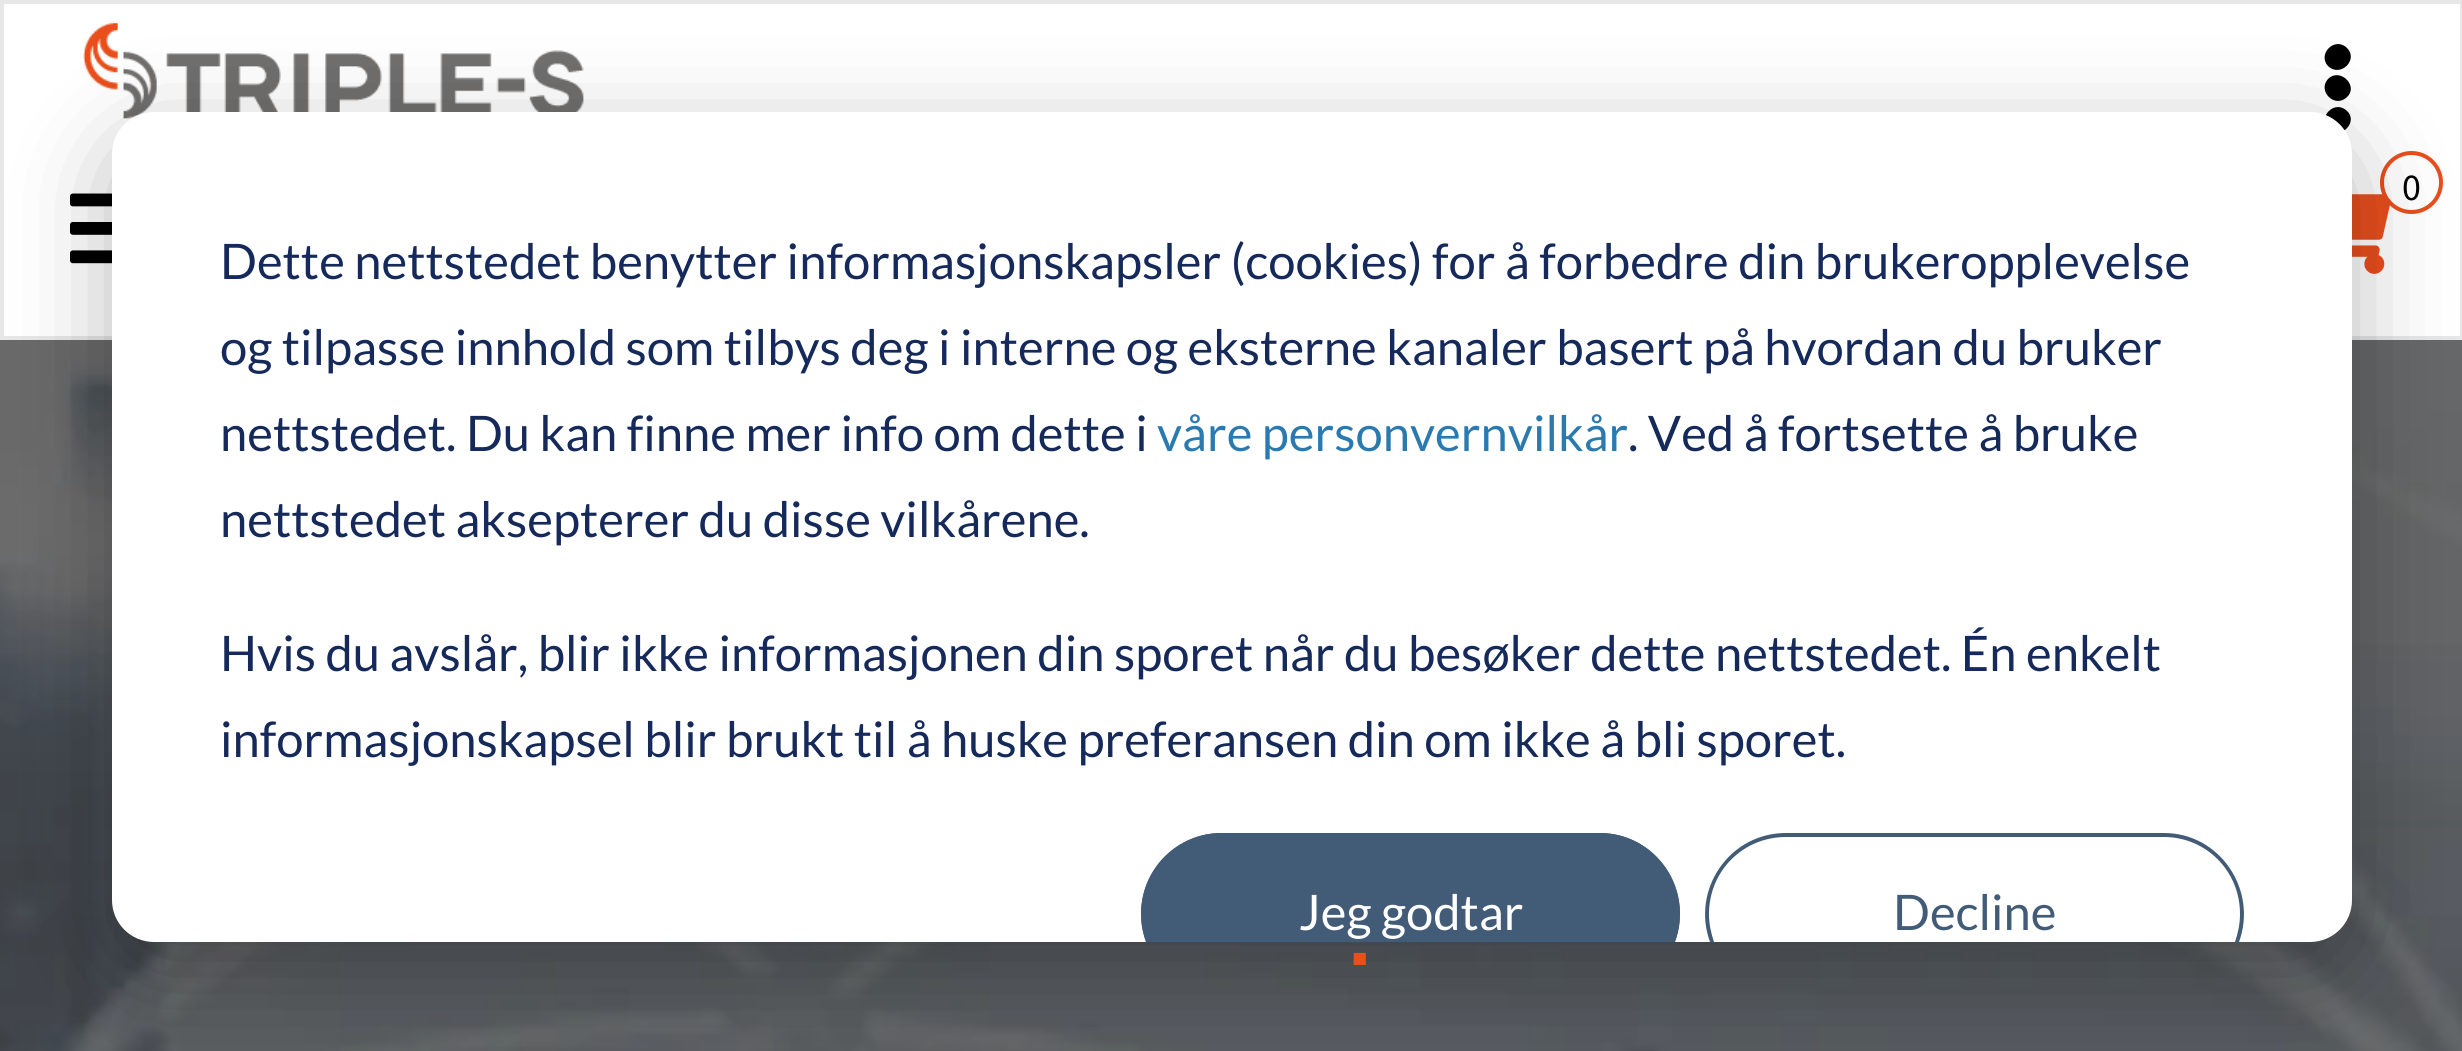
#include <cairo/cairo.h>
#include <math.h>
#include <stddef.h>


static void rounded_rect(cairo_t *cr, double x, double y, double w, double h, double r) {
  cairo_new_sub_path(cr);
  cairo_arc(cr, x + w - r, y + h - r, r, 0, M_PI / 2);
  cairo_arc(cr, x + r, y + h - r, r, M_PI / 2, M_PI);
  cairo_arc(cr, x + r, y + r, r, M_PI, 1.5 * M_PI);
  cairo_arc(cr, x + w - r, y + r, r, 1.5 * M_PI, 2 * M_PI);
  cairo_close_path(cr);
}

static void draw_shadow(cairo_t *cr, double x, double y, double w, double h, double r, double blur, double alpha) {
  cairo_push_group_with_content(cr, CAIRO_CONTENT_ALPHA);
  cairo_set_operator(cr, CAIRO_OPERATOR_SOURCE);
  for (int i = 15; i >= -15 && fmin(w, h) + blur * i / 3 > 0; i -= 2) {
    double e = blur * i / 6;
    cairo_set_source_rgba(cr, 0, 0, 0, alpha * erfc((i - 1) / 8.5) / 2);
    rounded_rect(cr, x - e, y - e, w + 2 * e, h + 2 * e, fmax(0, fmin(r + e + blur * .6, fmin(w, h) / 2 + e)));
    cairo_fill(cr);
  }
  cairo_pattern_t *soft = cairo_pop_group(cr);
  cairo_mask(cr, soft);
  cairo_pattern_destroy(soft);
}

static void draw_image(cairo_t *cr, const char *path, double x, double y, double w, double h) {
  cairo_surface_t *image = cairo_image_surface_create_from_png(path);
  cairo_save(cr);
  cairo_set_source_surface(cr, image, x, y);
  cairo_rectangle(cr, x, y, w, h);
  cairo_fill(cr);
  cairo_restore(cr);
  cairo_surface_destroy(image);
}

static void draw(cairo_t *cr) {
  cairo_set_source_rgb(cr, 1, 1, 1);
  cairo_paint(cr);
  cairo_rectangle(cr, 2, 2, 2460, 336);
  cairo_set_source_rgb(cr, 231 / 255.0, 231 / 255.0, 231 / 255.0);
  cairo_set_line_width(cr, 4);
  cairo_stroke(cr);
  draw_image(cr, "images/1.png", 83, 22, 501, 97);
  cairo_set_source_rgb(cr, 0, 0, 0);
  cairo_new_path(cr);
  cairo_move_to(cr, 2328, 79);
  cairo_curve_to(cr, 2340, 67, 2359, 86, 2347, 97);
  cairo_curve_to(cr, 2335, 109, 2317, 91, 2328, 79);
  cairo_close_path(cr);
  cairo_move_to(cr, 2328, 66);
  cairo_curve_to(cr, 2317, 54, 2335, 36, 2347, 48);
  cairo_curve_to(cr, 2359, 60, 2340, 78, 2328, 66);
  cairo_close_path(cr);
  cairo_move_to(cr, 2328, 129);
  cairo_curve_to(cr, 2317, 117, 2335, 99, 2347, 111);
  cairo_curve_to(cr, 2359, 122, 2340, 141, 2328, 129);
  cairo_close_path(cr);
  cairo_fill(cr);
  draw_image(cr, "images/2.png", 2352, 194, 38, 80);
  cairo_set_source_rgb(cr, 1, 1, 1);
  cairo_arc(cr, 2411.5, 182.5, 29.5, 0, 2 * M_PI);
  cairo_fill_preserve(cr);
  cairo_set_source_rgb(cr, 233 / 255.0, 78 / 255.0, 29 / 255.0);
  cairo_stroke(cr);
  draw_image(cr, "images/3.png", 70, 193, 42, 71);
  draw_image(cr, "images/4.png", 0, 340, 2462, 711);
  cairo_set_source_rgb(cr, 0, 0, 0);
  draw_shadow(cr, 112, 140, 2240, 830, 42, 49, 0.28);
  cairo_set_source_rgb(cr, 1, 1, 1);
  rounded_rect(cr, 112, 112, 2240, 830, 42);
  cairo_fill(cr);
  cairo_set_source_rgb(cr, 66 / 255.0, 91 / 255.0, 118 / 255.0);
  cairo_new_path(cr);
  cairo_move_to(cr, 1786, 833);
  cairo_curve_to(cr, 1729, 833, 1691, 890, 1710, 942);
  cairo_line_to(cr, 1714, 942);
  cairo_curve_to(cr, 1711, 933, 1709, 924, 1709, 914);
  cairo_curve_to(cr, 1709, 871, 1743, 837, 1786, 837);
  cairo_line_to(cr, 2164, 837);
  cairo_curve_to(cr, 2206, 837, 2240, 871, 2240, 914);
  cairo_curve_to(cr, 2240, 924, 2238, 933, 2235, 942);
  cairo_line_to(cr, 2239, 942);
  cairo_curve_to(cr, 2258, 890, 2220, 833, 2164, 833);
  cairo_close_path(cr);
  cairo_fill(cr);
  cairo_select_font_face(cr, "Source Sans Pro", CAIRO_FONT_SLANT_NORMAL, CAIRO_FONT_WEIGHT_NORMAL);
  cairo_set_font_size(cr, 38);
  cairo_set_source_rgb(cr, 0, 0, 0);
  cairo_move_to(cr, 2402, 200);
  cairo_show_text(cr, "0");
  cairo_select_font_face(cr, "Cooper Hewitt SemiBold", CAIRO_FONT_SLANT_NORMAL, CAIRO_FONT_WEIGHT_NORMAL);
  cairo_set_font_size(cr, 86);
  cairo_set_source_rgb(cr, 233 / 255.0, 78 / 255.0, 29 / 255.0);
  cairo_move_to(cr, 1349, 965);
  cairo_show_text(cr, ".");
  cairo_select_font_face(cr, "Lato", CAIRO_FONT_SLANT_NORMAL, CAIRO_FONT_WEIGHT_NORMAL);
  cairo_set_font_size(cr, 49);
  cairo_set_source_rgb(cr, 21 / 255.0, 41 / 255.0, 90 / 255.0);
  cairo_move_to(cr, 220, 279);
  cairo_show_text(cr, "Dette nettstedet benytter informasjonskapsler (cookies) for å forbedre din brukeropplevelse");
  cairo_move_to(cr, 220, 365);
  cairo_show_text(cr, "og tilpasse innhold som tilbys deg i interne og eksterne kanaler basert på hvordan du bruker");
  cairo_move_to(cr, 220, 451);
  cairo_show_text(cr, "nettstedet. Du kan finne mer info om dette i");
  cairo_set_source_rgb(cr, 42 / 255.0, 122 / 255.0, 176 / 255.0);
  cairo_move_to(cr, 1157, 451);
  cairo_show_text(cr, "våre personvernvilkår");
  cairo_set_source_rgb(cr, 21 / 255.0, 41 / 255.0, 90 / 255.0);
  cairo_move_to(cr, 1628, 451);
  cairo_show_text(cr, ". Ved å fortsette å bruke");
  cairo_move_to(cr, 220, 537);
  cairo_show_text(cr, "nettstedet aksepterer du disse vilkårene.");
  cairo_move_to(cr, 220, 671);
  cairo_show_text(cr, "Hvis du avslår, blir ikke informasjonen din sporet når du besøker dette nettstedet. Én enkelt");
  cairo_move_to(cr, 220, 757);
  cairo_show_text(cr, "informasjonskapsel blir brukt til å huske preferansen din om ikke å bli sporet.");
  cairo_save(cr);
  rounded_rect(cr, 112, 112, 2240, 830, 42);
  cairo_clip(cr);
  cairo_set_source_rgb(cr, 66 / 255.0, 91 / 255.0, 118 / 255.0);
  rounded_rect(cr, 1141, 833, 539, 161, 80.5);
  cairo_fill(cr);
  cairo_restore(cr);
  cairo_set_source_rgb(cr, 66 / 255.0, 91 / 255.0, 118 / 255.0);
  cairo_new_path(cr);
  cairo_move_to(cr, 1222, 833);
  cairo_curve_to(cr, 1165, 833, 1127, 890, 1146, 942);
  cairo_line_to(cr, 1150, 942);
  cairo_curve_to(cr, 1147, 933, 1145, 924, 1145, 914);
  cairo_curve_to(cr, 1145, 871, 1179, 837, 1222, 837);
  cairo_line_to(cr, 1600, 837);
  cairo_curve_to(cr, 1642, 837, 1676, 871, 1676, 914);
  cairo_curve_to(cr, 1676, 924, 1674, 933, 1671, 942);
  cairo_line_to(cr, 1675, 942);
  cairo_curve_to(cr, 1694, 890, 1656, 833, 1600, 833);
  cairo_close_path(cr);
  cairo_fill(cr);
  cairo_set_source_rgb(cr, 1, 1, 1);
  cairo_move_to(cr, 1299, 930);
  cairo_show_text(cr, "Jeg godtar");
  cairo_set_source_rgb(cr, 66 / 255.0, 91 / 255.0, 118 / 255.0);
  cairo_move_to(cr, 1893, 930);
  cairo_show_text(cr, "Decline");
}

int main(void) {
  cairo_surface_t *surface = cairo_image_surface_create(CAIRO_FORMAT_RGB24, 2462, 1051);
  cairo_t *cr = cairo_create(surface);
  cairo_font_options_t *options = cairo_font_options_create();
  cairo_font_options_set_hint_metrics(options, CAIRO_HINT_METRICS_OFF);
  cairo_font_options_set_hint_style(options, CAIRO_HINT_STYLE_NONE);
  cairo_set_font_options(cr, options);
  cairo_set_miter_limit(cr, 4);
  draw(cr);
  cairo_surface_write_to_png(surface, "out.png");
  cairo_font_options_destroy(options);
  cairo_destroy(cr);
  cairo_surface_destroy(surface);
  return 0;
}
